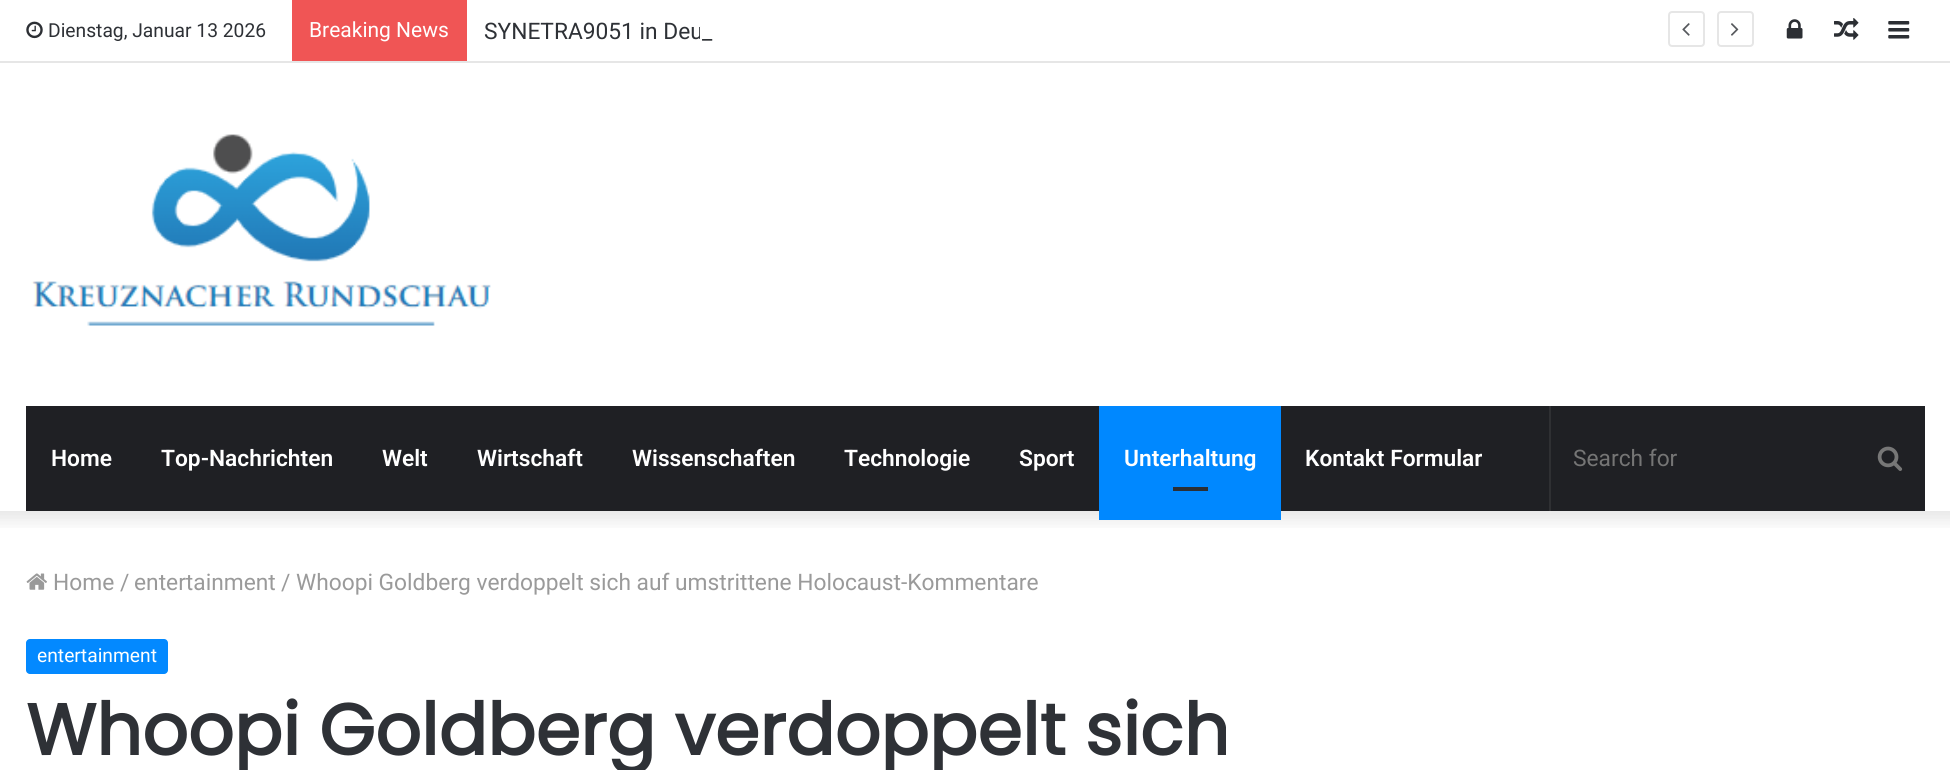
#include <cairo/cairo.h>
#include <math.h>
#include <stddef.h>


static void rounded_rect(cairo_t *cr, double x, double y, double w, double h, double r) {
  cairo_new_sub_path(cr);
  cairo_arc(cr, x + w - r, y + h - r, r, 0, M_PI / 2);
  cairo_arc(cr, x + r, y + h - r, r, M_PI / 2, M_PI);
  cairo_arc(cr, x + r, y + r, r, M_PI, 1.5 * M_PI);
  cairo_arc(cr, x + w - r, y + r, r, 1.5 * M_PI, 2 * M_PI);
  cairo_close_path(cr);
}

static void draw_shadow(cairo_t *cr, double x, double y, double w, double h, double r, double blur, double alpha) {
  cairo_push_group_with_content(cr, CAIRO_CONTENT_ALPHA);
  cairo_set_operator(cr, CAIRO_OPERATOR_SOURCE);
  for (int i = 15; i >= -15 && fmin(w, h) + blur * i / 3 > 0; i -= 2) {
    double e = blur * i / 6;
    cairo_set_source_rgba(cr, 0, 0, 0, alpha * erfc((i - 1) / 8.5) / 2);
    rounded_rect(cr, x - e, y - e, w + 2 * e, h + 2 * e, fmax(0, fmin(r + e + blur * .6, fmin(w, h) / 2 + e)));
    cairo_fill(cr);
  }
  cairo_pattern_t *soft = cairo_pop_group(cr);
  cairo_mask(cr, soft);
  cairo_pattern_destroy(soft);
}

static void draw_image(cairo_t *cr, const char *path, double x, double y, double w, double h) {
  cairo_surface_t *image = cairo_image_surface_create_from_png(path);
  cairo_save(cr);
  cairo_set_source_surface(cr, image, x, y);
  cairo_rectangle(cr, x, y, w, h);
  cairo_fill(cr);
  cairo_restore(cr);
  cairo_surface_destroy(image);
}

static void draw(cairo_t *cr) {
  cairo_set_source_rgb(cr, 1, 1, 1);
  cairo_paint(cr);
  cairo_save(cr);
  cairo_rectangle(cr, 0, 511, 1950, 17);
  cairo_clip(cr);
  cairo_set_source_rgb(cr, 0, 0, 0);
  draw_shadow(cr, -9, -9, 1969, 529, 0, 9, 0.1);
  cairo_restore(cr);
  cairo_set_source_rgb(cr, 230 / 255.0, 230 / 255.0, 230 / 255.0);
  cairo_rectangle(cr, 0, 61, 1950, 2);
  cairo_fill(cr);
  draw_image(cr, "images/1.png", 26, 21, 17, 18);
  cairo_set_source_rgb(cr, 240 / 255.0, 85 / 255.0, 85 / 255.0);
  cairo_rectangle(cr, 292, 0, 175, 61);
  cairo_fill(cr);
  rounded_rect(cr, 1669, 12, 35, 34, 3);
  cairo_set_source_rgb(cr, 230 / 255.0, 230 / 255.0, 230 / 255.0);
  cairo_stroke(cr);
  draw_image(cr, "images/2.png", 1682, 23, 8, 13);
  rounded_rect(cr, 1718, 12, 35, 34, 3);
  cairo_stroke(cr);
  draw_image(cr, "images/3.png", 1731, 23, 8, 13);
  draw_image(cr, "images/4.png", 1786, 19, 17, 20);
  draw_image(cr, "images/5.png", 1834, 18, 25, 22);
  draw_image(cr, "images/6.png", 1888, 21, 22, 18);
  draw_image(cr, "images/7.png", 31, 134, 460, 192);
  cairo_set_source_rgb(cr, 31 / 255.0, 32 / 255.0, 36 / 255.0);
  cairo_rectangle(cr, 26, 406, 1899, 105);
  cairo_fill(cr);
  cairo_set_source_rgb(cr, 0, 136 / 255.0, 1);
  cairo_rectangle(cr, 1099, 406, 182, 114);
  cairo_fill(cr);
  cairo_set_source_rgb(cr, 44 / 255.0, 47 / 255.0, 52 / 255.0);
  cairo_rectangle(cr, 1173, 487, 35, 4);
  cairo_fill(cr);
  cairo_set_source_rgb(cr, 47 / 255.0, 48 / 255.0, 51 / 255.0);
  cairo_rectangle(cr, 1549, 406, 2, 105);
  cairo_fill(cr);
  draw_image(cr, "images/8.png", 1877, 446, 26, 25);
  draw_image(cr, "images/9.png", 26, 573, 21, 17);
  cairo_set_source_rgb(cr, 3 / 255.0, 137 / 255.0, 1);
  rounded_rect(cr, 26, 639, 142, 35, 4);
  cairo_fill(cr);
  cairo_select_font_face(cr, "Roboto", CAIRO_FONT_SLANT_NORMAL, CAIRO_FONT_WEIGHT_NORMAL);
  cairo_set_font_size(cr, 19.25);
  cairo_set_source_rgb(cr, 46 / 255.0, 49 / 255.0, 54 / 255.0);
  cairo_move_to(cr, 48, 37);
  cairo_show_text(cr, "Dienstag, Januar 13 2026");
  cairo_set_font_size(cr, 21);
  cairo_set_source_rgb(cr, 1, 1, 1);
  cairo_move_to(cr, 309, 37);
  cairo_show_text(cr, "Breaking News");
  cairo_set_font_size(cr, 22.75);
  cairo_set_source_rgb(cr, 46 / 255.0, 49 / 255.0, 54 / 255.0);
  cairo_move_to(cr, 484, 39);
  cairo_show_text(cr, "SYNETRA9051 in Deu");
  cairo_set_source_rgb(cr, 1, 1, 1);
  cairo_rectangle(cr, 700, 27, 2, 12);
  cairo_fill(cr);
  cairo_set_source_rgb(cr, 46 / 255.0, 49 / 255.0, 54 / 255.0);
  cairo_move_to(cr, 702, 39);
  cairo_show_text(cr, "_");
  cairo_select_font_face(cr, "Roboto SemiBold", CAIRO_FONT_SLANT_NORMAL, CAIRO_FONT_WEIGHT_NORMAL);
  cairo_set_source_rgb(cr, 1, 1, 1);
  cairo_move_to(cr, 51, 466);
  cairo_show_text(cr, "Home");
  cairo_move_to(cr, 161, 466);
  cairo_show_text(cr, "Top-Nachrichten");
  cairo_move_to(cr, 382, 466);
  cairo_show_text(cr, "Welt");
  cairo_move_to(cr, 477, 466);
  cairo_show_text(cr, "Wirtschaft");
  cairo_move_to(cr, 632, 466);
  cairo_show_text(cr, "Wissenschaften");
  cairo_move_to(cr, 844, 466);
  cairo_show_text(cr, "Technologie");
  cairo_move_to(cr, 1019, 466);
  cairo_show_text(cr, "Sport");
  cairo_move_to(cr, 1124, 466);
  cairo_show_text(cr, "Unterhaltung");
  cairo_move_to(cr, 1305, 466);
  cairo_show_text(cr, "Kontakt Formular");
  cairo_select_font_face(cr, "Roboto", CAIRO_FONT_SLANT_NORMAL, CAIRO_FONT_WEIGHT_NORMAL);
  cairo_set_source_rgb(cr, 117 / 255.0, 117 / 255.0, 117 / 255.0);
  cairo_move_to(cr, 1573, 466);
  cairo_show_text(cr, "Search for");
  cairo_set_source_rgb(cr, 154 / 255.0, 154 / 255.0, 154 / 255.0);
  cairo_move_to(cr, 53, 590);
  cairo_show_text(cr, "Home");
  cairo_move_to(cr, 120, 590);
  cairo_show_text(cr, "/");
  cairo_move_to(cr, 134, 590);
  cairo_show_text(cr, "entertainment");
  cairo_move_to(cr, 281, 590);
  cairo_show_text(cr, "/");
  cairo_move_to(cr, 296, 590);
  cairo_show_text(cr, "Whoopi Goldberg verdoppelt sich auf umstrittene Holocaust-Kommentare");
  cairo_set_font_size(cr, 19.25);
  cairo_set_source_rgb(cr, 1, 1, 1);
  cairo_move_to(cr, 37, 662);
  cairo_show_text(cr, "entertainment");
  cairo_select_font_face(cr, "Poppins", CAIRO_FONT_SLANT_NORMAL, CAIRO_FONT_WEIGHT_BOLD);
  cairo_set_font_size(cr, 71.75);
  cairo_set_source_rgb(cr, 46 / 255.0, 49 / 255.0, 54 / 255.0);
  cairo_move_to(cr, 26, 755);
  cairo_show_text(cr, "Whoopi Goldberg verdoppelt sich");
}

int main(void) {
  cairo_surface_t *surface = cairo_image_surface_create(CAIRO_FORMAT_RGB24, 1950, 770);
  cairo_t *cr = cairo_create(surface);
  cairo_font_options_t *options = cairo_font_options_create();
  cairo_font_options_set_hint_metrics(options, CAIRO_HINT_METRICS_OFF);
  cairo_font_options_set_hint_style(options, CAIRO_HINT_STYLE_NONE);
  cairo_set_font_options(cr, options);
  cairo_set_miter_limit(cr, 4);
  draw(cr);
  cairo_surface_write_to_png(surface, "out.png");
  cairo_font_options_destroy(options);
  cairo_destroy(cr);
  cairo_surface_destroy(surface);
  return 0;
}
